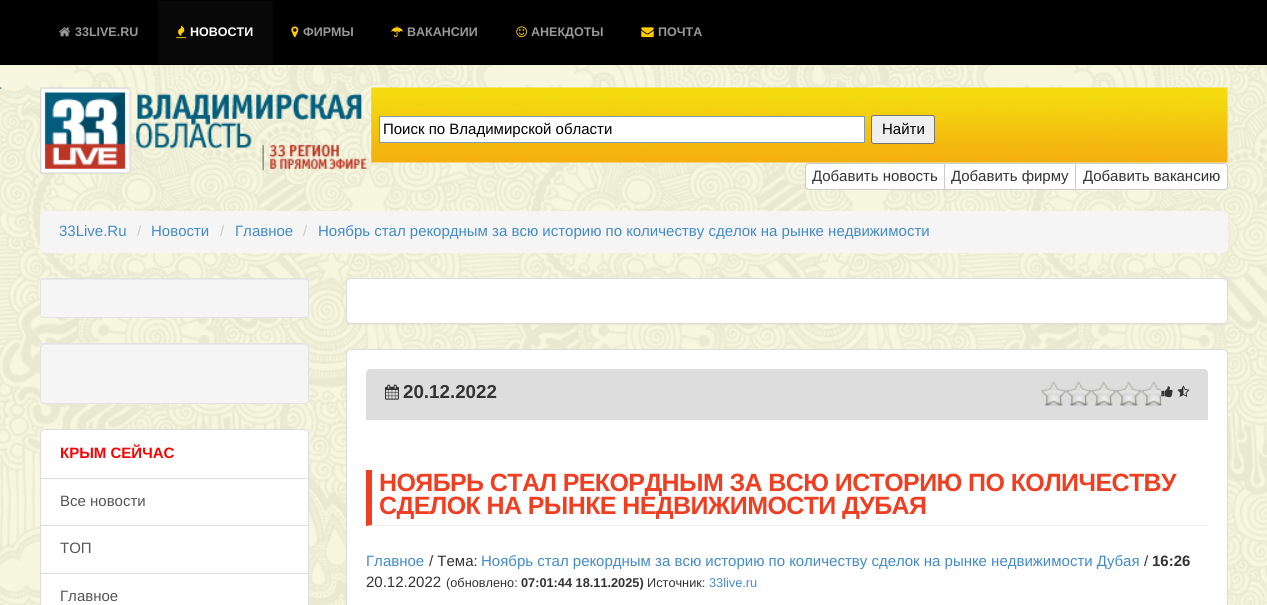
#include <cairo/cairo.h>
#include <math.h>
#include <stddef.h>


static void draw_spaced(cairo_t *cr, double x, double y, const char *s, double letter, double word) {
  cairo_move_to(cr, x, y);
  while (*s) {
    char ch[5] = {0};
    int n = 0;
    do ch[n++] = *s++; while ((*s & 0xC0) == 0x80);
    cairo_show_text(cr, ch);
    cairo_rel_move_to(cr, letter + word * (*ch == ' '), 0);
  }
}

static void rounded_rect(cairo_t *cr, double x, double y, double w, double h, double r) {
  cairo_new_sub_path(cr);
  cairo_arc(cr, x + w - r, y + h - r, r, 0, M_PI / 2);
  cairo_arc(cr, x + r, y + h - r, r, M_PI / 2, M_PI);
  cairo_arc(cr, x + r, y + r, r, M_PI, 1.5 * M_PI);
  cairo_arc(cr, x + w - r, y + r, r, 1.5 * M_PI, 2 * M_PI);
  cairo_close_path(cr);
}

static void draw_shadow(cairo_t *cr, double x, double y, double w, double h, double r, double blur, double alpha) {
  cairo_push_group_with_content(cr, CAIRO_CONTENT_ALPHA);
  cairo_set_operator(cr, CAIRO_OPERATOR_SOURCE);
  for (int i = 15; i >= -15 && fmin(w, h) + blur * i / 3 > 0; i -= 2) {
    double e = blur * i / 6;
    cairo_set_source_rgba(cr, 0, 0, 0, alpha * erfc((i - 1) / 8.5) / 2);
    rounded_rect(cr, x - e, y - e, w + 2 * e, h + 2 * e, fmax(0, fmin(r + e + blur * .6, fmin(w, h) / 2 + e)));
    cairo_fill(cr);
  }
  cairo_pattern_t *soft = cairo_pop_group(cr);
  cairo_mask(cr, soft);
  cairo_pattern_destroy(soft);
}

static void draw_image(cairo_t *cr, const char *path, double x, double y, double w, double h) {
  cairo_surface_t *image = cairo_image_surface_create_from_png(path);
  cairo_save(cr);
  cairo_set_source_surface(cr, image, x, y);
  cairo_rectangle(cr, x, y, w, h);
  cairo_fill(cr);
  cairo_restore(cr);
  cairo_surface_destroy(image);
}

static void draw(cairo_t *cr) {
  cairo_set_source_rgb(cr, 1, 1, 1);
  cairo_paint(cr);
  draw_image(cr, "images/1.png", 0, 65, 1267, 540);
  cairo_set_source_rgb(cr, 0, 0, 0);
  cairo_rectangle(cr, 0, 0, 1267, 65);
  cairo_fill(cr);
  draw_image(cr, "images/2.png", 59, 27, 12, 10);
  cairo_set_source_rgb(cr, 8 / 255.0, 8 / 255.0, 8 / 255.0);
  cairo_rectangle(cr, 158, 1, 115, 63);
  cairo_fill(cr);
  draw_image(cr, "images/3.png", 176, 25, 11, 14);
  draw_image(cr, "images/4.png", 291, 26, 8, 12);
  draw_image(cr, "images/5.png", 391, 26, 12, 12);
  draw_image(cr, "images/6.png", 516, 26, 11, 12);
  draw_image(cr, "images/7.png", 641, 27, 13, 11);
  draw_image(cr, "images/8.png", 0, 87, 2, 2);
  draw_image(cr, "images/9.png", 40, 87, 327, 87);
  draw_image(cr, "images/10.png", 371, 87, 857, 76);
  cairo_set_source_rgb(cr, 1, 1, 1);
  cairo_rectangle(cr, 379.5, 116.5, 485, 26);
  cairo_fill_preserve(cr);
  cairo_set_source_rgb(cr, 127 / 255.0, 157 / 255.0, 185 / 255.0);
  cairo_set_line_width(cr, 1);
  cairo_stroke(cr);
  cairo_set_source_rgb(cr, 239 / 255.0, 239 / 255.0, 239 / 255.0);
  rounded_rect(cr, 871.5, 115.5, 63, 28, 2);
  cairo_fill_preserve(cr);
  cairo_set_source_rgb(cr, 118 / 255.0, 118 / 255.0, 118 / 255.0);
  cairo_stroke(cr);
  cairo_set_source_rgb(cr, 1, 1, 1);
  cairo_new_path(cr);
  cairo_move_to(cr, 809, 163.5);
  cairo_line_to(cr, 944.5, 163.5);
  cairo_line_to(cr, 944.5, 189.5);
  cairo_line_to(cr, 809, 189.5);
  cairo_curve_to(cr, 807, 189.5, 805.5, 188, 805.5, 186);
  cairo_line_to(cr, 805.5, 167);
  cairo_curve_to(cr, 805.5, 165, 807, 163.5, 809, 163.5);
  cairo_close_path(cr);
  cairo_fill_preserve(cr);
  cairo_set_source_rgb(cr, 204 / 255.0, 204 / 255.0, 204 / 255.0);
  cairo_stroke(cr);
  cairo_set_source_rgb(cr, 1, 1, 1);
  cairo_rectangle(cr, 944.5, 163.5, 131, 26);
  cairo_fill_preserve(cr);
  cairo_set_source_rgb(cr, 204 / 255.0, 204 / 255.0, 204 / 255.0);
  cairo_stroke(cr);
  cairo_set_source_rgb(cr, 1, 1, 1);
  cairo_new_path(cr);
  cairo_move_to(cr, 1075.5, 163.5);
  cairo_line_to(cr, 1224, 163.5);
  cairo_curve_to(cr, 1226, 163.5, 1227.5, 165, 1227.5, 167);
  cairo_line_to(cr, 1227.5, 186);
  cairo_curve_to(cr, 1227.5, 188, 1226, 189.5, 1224, 189.5);
  cairo_line_to(cr, 1075.5, 189.5);
  cairo_close_path(cr);
  cairo_fill_preserve(cr);
  cairo_set_source_rgb(cr, 204 / 255.0, 204 / 255.0, 204 / 255.0);
  cairo_stroke(cr);
  cairo_set_source_rgb(cr, 245 / 255.0, 245 / 255.0, 245 / 255.0);
  rounded_rect(cr, 40, 211, 1188, 42, 5);
  cairo_fill(cr);
  rounded_rect(cr, 40, 278, 269, 40, 4);
  cairo_fill(cr);
  cairo_set_source_rgb(cr, 233 / 255.0, 233 / 255.0, 233 / 255.0);
  cairo_new_path(cr);
  cairo_move_to(cr, 44, 280);
  cairo_line_to(cr, 305, 280);
  cairo_curve_to(cr, 306, 280, 308, 281, 308, 282);
  cairo_curve_to(cr, 308, 280, 307, 279, 306, 279);
  cairo_line_to(cr, 44, 279);
  cairo_curve_to(cr, 42, 279, 41, 280, 41, 282);
  cairo_curve_to(cr, 41, 281, 42, 280, 44, 280);
  cairo_close_path(cr);
  cairo_fill(cr);
  rounded_rect(cr, 40.5, 278.5, 268, 39, 3.5);
  cairo_set_source_rgb(cr, 227 / 255.0, 227 / 255.0, 227 / 255.0);
  cairo_stroke(cr);
  cairo_set_source_rgb(cr, 245 / 255.0, 245 / 255.0, 245 / 255.0);
  rounded_rect(cr, 40, 343, 269, 61, 4);
  cairo_fill(cr);
  cairo_set_source_rgb(cr, 233 / 255.0, 233 / 255.0, 233 / 255.0);
  cairo_new_path(cr);
  cairo_move_to(cr, 44, 345);
  cairo_line_to(cr, 305, 345);
  cairo_curve_to(cr, 306, 345, 308, 346, 308, 348);
  cairo_line_to(cr, 308, 346);
  cairo_curve_to(cr, 308, 345, 307, 344, 306, 344);
  cairo_line_to(cr, 44, 344);
  cairo_curve_to(cr, 42, 344, 41, 345, 41, 346);
  cairo_line_to(cr, 41, 348);
  cairo_curve_to(cr, 41, 346, 42, 345, 44, 345);
  cairo_close_path(cr);
  cairo_fill(cr);
  rounded_rect(cr, 40.5, 343.5, 268, 60, 3.5);
  cairo_set_source_rgb(cr, 227 / 255.0, 227 / 255.0, 227 / 255.0);
  cairo_stroke(cr);
  cairo_set_source_rgb(cr, 1, 1, 1);
  cairo_new_path(cr);
  cairo_move_to(cr, 45, 429.5);
  cairo_line_to(cr, 304, 429.5);
  cairo_curve_to(cr, 306.5, 429.5, 308.5, 431.5, 308.5, 434);
  cairo_line_to(cr, 308.5, 478.5);
  cairo_line_to(cr, 40.5, 478.5);
  cairo_line_to(cr, 40.5, 434);
  cairo_curve_to(cr, 40.5, 431.5, 42.5, 429.5, 45, 429.5);
  cairo_close_path(cr);
  cairo_fill_preserve(cr);
  cairo_set_source_rgb(cr, 221 / 255.0, 221 / 255.0, 221 / 255.0);
  cairo_stroke(cr);
  cairo_set_source_rgb(cr, 1, 1, 1);
  cairo_rectangle(cr, 40.5, 478.5, 268, 47);
  cairo_fill_preserve(cr);
  cairo_set_source_rgb(cr, 221 / 255.0, 221 / 255.0, 221 / 255.0);
  cairo_stroke(cr);
  cairo_set_source_rgb(cr, 1, 1, 1);
  cairo_rectangle(cr, 40.5, 525.5, 268, 48);
  cairo_fill_preserve(cr);
  cairo_set_source_rgb(cr, 221 / 255.0, 221 / 255.0, 221 / 255.0);
  cairo_stroke(cr);
  cairo_set_source_rgb(cr, 1, 1, 1);
  cairo_rectangle(cr, 40.5, 573.5, 268, 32);
  cairo_fill_preserve(cr);
  cairo_set_source_rgb(cr, 221 / 255.0, 221 / 255.0, 221 / 255.0);
  cairo_stroke(cr);
  cairo_set_source_rgb(cr, 0, 0, 0);
  draw_shadow(cr, 346, 279, 882, 46, 5, 0.5, 0.05);
  cairo_set_source_rgb(cr, 1, 1, 1);
  rounded_rect(cr, 346.5, 278.5, 881, 45, 4.5);
  cairo_fill_preserve(cr);
  cairo_set_source_rgb(cr, 221 / 255.0, 221 / 255.0, 221 / 255.0);
  cairo_stroke(cr);
  cairo_set_source_rgb(cr, 1, 1, 1);
  rounded_rect(cr, 346.5, 349.5, 881, 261, 4.5);
  cairo_fill_preserve(cr);
  cairo_set_source_rgb(cr, 221 / 255.0, 221 / 255.0, 221 / 255.0);
  cairo_stroke(cr);
  cairo_new_path(cr);
  cairo_move_to(cr, 370, 369);
  cairo_line_to(cr, 1204, 369);
  cairo_curve_to(cr, 1206, 369, 1208, 371, 1208, 373);
  cairo_line_to(cr, 1208, 420);
  cairo_line_to(cr, 366, 420);
  cairo_line_to(cr, 366, 373);
  cairo_curve_to(cr, 366, 371, 368, 369, 370, 369);
  cairo_close_path(cr);
  cairo_fill(cr);
  draw_image(cr, "images/11.png", 385, 384, 14, 16);
  draw_image(cr, "images/13.png", 1161, 386, 12, 12);
  draw_image(cr, "images/12.png", 1041, 381, 121, 25);
  draw_image(cr, "images/14.png", 1177, 385, 13, 12);
  cairo_set_source_rgb(cr, 238 / 255.0, 238 / 255.0, 238 / 255.0);
  cairo_new_path(cr);
  cairo_move_to(cr, 1208, 526);
  cairo_line_to(cr, 366, 526);
  cairo_line_to(cr, 372, 525);
  cairo_line_to(cr, 1208, 525);
  cairo_close_path(cr);
  cairo_fill(cr);
  cairo_set_source_rgb(cr, 239 / 255.0, 63 / 255.0, 35 / 255.0);
  cairo_new_path(cr);
  cairo_move_to(cr, 366, 526);
  cairo_line_to(cr, 366, 470);
  cairo_line_to(cr, 372, 470);
  cairo_line_to(cr, 372, 525);
  cairo_close_path(cr);
  cairo_fill(cr);
  cairo_select_font_face(cr, "Liberation Sans", CAIRO_FONT_SLANT_NORMAL, CAIRO_FONT_WEIGHT_BOLD);
  cairo_set_font_size(cr, 12.5);
  cairo_set_source_rgb(cr, 153 / 255.0, 153 / 255.0, 153 / 255.0);
  cairo_move_to(cr, 75, 36);
  cairo_show_text(cr, "33LIVE.RU");
  cairo_set_source_rgb(cr, 1, 1, 1);
  cairo_move_to(cr, 190, 36);
  cairo_show_text(cr, "НОВОСТИ");
  cairo_set_source_rgb(cr, 153 / 255.0, 153 / 255.0, 153 / 255.0);
  cairo_move_to(cr, 303, 36);
  cairo_show_text(cr, "ФИРМЫ");
  cairo_move_to(cr, 407, 36);
  cairo_show_text(cr, "ВАКАНСИИ");
  cairo_move_to(cr, 531, 36);
  cairo_show_text(cr, "АНЕКДОТЫ");
  cairo_move_to(cr, 658, 36);
  cairo_show_text(cr, "ПОЧТА");
  cairo_select_font_face(cr, "Liberation Sans", CAIRO_FONT_SLANT_NORMAL, CAIRO_FONT_WEIGHT_NORMAL);
  cairo_set_font_size(cr, 15);
  cairo_set_source_rgb(cr, 0, 0, 0);
  cairo_move_to(cr, 383, 134);
  cairo_show_text(cr, "Поиск по Владимирской области");
  cairo_move_to(cr, 882, 134);
  cairo_show_text(cr, "Найти");
  cairo_set_source_rgb(cr, 51 / 255.0, 51 / 255.0, 51 / 255.0);
  cairo_move_to(cr, 812, 181);
  cairo_show_text(cr, "Добавить новость");
  cairo_move_to(cr, 951, 181);
  cairo_show_text(cr, "Добавить фирму");
  cairo_move_to(cr, 1083, 181);
  cairo_show_text(cr, "Добавить вакансию");
  cairo_set_source_rgb(cr, 66 / 255.0, 139 / 255.0, 202 / 255.0);
  cairo_move_to(cr, 59, 236);
  cairo_show_text(cr, "33Live.Ru");
  cairo_set_source_rgb(cr, 204 / 255.0, 204 / 255.0, 204 / 255.0);
  cairo_move_to(cr, 137, 236);
  cairo_show_text(cr, "/");
  cairo_set_source_rgb(cr, 66 / 255.0, 139 / 255.0, 202 / 255.0);
  cairo_move_to(cr, 151, 236);
  cairo_show_text(cr, "Новости");
  cairo_set_source_rgb(cr, 204 / 255.0, 204 / 255.0, 204 / 255.0);
  cairo_move_to(cr, 220, 236);
  cairo_show_text(cr, "/");
  cairo_set_source_rgb(cr, 66 / 255.0, 139 / 255.0, 202 / 255.0);
  cairo_move_to(cr, 235, 236);
  cairo_show_text(cr, "Главное");
  cairo_set_source_rgb(cr, 204 / 255.0, 204 / 255.0, 204 / 255.0);
  cairo_move_to(cr, 303, 236);
  cairo_show_text(cr, "/");
  cairo_set_source_rgb(cr, 66 / 255.0, 139 / 255.0, 202 / 255.0);
  cairo_move_to(cr, 318, 236);
  cairo_show_text(cr, "Ноябрь стал рекордным за всю историю по количеству сделок на рынке недвижимости");
  cairo_select_font_face(cr, "Liberation Sans", CAIRO_FONT_SLANT_NORMAL, CAIRO_FONT_WEIGHT_BOLD);
  cairo_set_source_rgb(cr, 1, 0, 0);
  cairo_move_to(cr, 60, 458);
  cairo_show_text(cr, "КРЫМ СЕЙЧАС");
  cairo_select_font_face(cr, "Liberation Sans", CAIRO_FONT_SLANT_NORMAL, CAIRO_FONT_WEIGHT_NORMAL);
  cairo_set_source_rgb(cr, 85 / 255.0, 85 / 255.0, 85 / 255.0);
  cairo_move_to(cr, 60, 506);
  cairo_show_text(cr, "Все новости");
  cairo_move_to(cr, 60, 553);
  cairo_show_text(cr, "ТОП");
  cairo_move_to(cr, 60, 601);
  cairo_show_text(cr, "Главное");
  cairo_select_font_face(cr, "Liberation Sans", CAIRO_FONT_SLANT_NORMAL, CAIRO_FONT_WEIGHT_BOLD);
  cairo_set_font_size(cr, 18.75);
  cairo_set_source_rgb(cr, 51 / 255.0, 51 / 255.0, 51 / 255.0);
  cairo_move_to(cr, 403, 398);
  cairo_show_text(cr, "20.12.2022");
  cairo_set_font_size(cr, 25);
  cairo_set_source_rgb(cr, 239 / 255.0, 63 / 255.0, 35 / 255.0);
  draw_spaced(cr, 379, 491, "НОЯБРЬ СТАЛ РЕКОРДНЫМ ЗА ВСЮ ИСТОРИЮ ПО КОЛИЧЕСТВУ", -0.6, 0);
  draw_spaced(cr, 379, 514, "СДЕЛОК НА РЫНКЕ НЕДВИЖИМОСТИ ДУБАЯ", -0.6, 0);
  cairo_select_font_face(cr, "Liberation Sans", CAIRO_FONT_SLANT_NORMAL, CAIRO_FONT_WEIGHT_NORMAL);
  cairo_set_font_size(cr, 15);
  cairo_set_source_rgb(cr, 66 / 255.0, 139 / 255.0, 202 / 255.0);
  cairo_move_to(cr, 366, 566);
  cairo_show_text(cr, "Главное");
  cairo_set_source_rgb(cr, 51 / 255.0, 51 / 255.0, 51 / 255.0);
  cairo_move_to(cr, 429, 566);
  cairo_show_text(cr, "/ Тема:");
  cairo_set_source_rgb(cr, 66 / 255.0, 139 / 255.0, 202 / 255.0);
  cairo_move_to(cr, 481, 566);
  cairo_show_text(cr, "Ноябрь стал рекордным за всю историю по количеству сделок на рынке недвижимости Дубая");
  cairo_set_source_rgb(cr, 51 / 255.0, 51 / 255.0, 51 / 255.0);
  cairo_move_to(cr, 1144, 566);
  cairo_show_text(cr, "/");
  cairo_select_font_face(cr, "Liberation Sans", CAIRO_FONT_SLANT_NORMAL, CAIRO_FONT_WEIGHT_BOLD);
  cairo_move_to(cr, 1152, 566);
  cairo_show_text(cr, "16:26");
  cairo_select_font_face(cr, "Liberation Sans", CAIRO_FONT_SLANT_NORMAL, CAIRO_FONT_WEIGHT_NORMAL);
  cairo_move_to(cr, 366, 587);
  cairo_show_text(cr, "20.12.2022");
  cairo_set_font_size(cr, 12.75);
  cairo_move_to(cr, 446, 587);
  cairo_show_text(cr, "(обновлено:");
  cairo_select_font_face(cr, "Liberation Sans", CAIRO_FONT_SLANT_NORMAL, CAIRO_FONT_WEIGHT_BOLD);
  cairo_move_to(cr, 521, 587);
  cairo_show_text(cr, "07:01:44 18.11.2025)");
  cairo_select_font_face(cr, "Liberation Sans", CAIRO_FONT_SLANT_NORMAL, CAIRO_FONT_WEIGHT_NORMAL);
  cairo_move_to(cr, 647, 587);
  cairo_show_text(cr, "Источник:");
  cairo_set_source_rgb(cr, 66 / 255.0, 139 / 255.0, 202 / 255.0);
  cairo_move_to(cr, 709, 587);
  cairo_show_text(cr, "33live.ru");
}

int main(void) {
  cairo_surface_t *surface = cairo_image_surface_create(CAIRO_FORMAT_RGB24, 1267, 605);
  cairo_t *cr = cairo_create(surface);
  cairo_font_options_t *options = cairo_font_options_create();
  cairo_font_options_set_hint_metrics(options, CAIRO_HINT_METRICS_OFF);
  cairo_font_options_set_hint_style(options, CAIRO_HINT_STYLE_NONE);
  cairo_set_font_options(cr, options);
  cairo_set_miter_limit(cr, 4);
  draw(cr);
  cairo_surface_write_to_png(surface, "out.png");
  cairo_font_options_destroy(options);
  cairo_destroy(cr);
  cairo_surface_destroy(surface);
  return 0;
}
